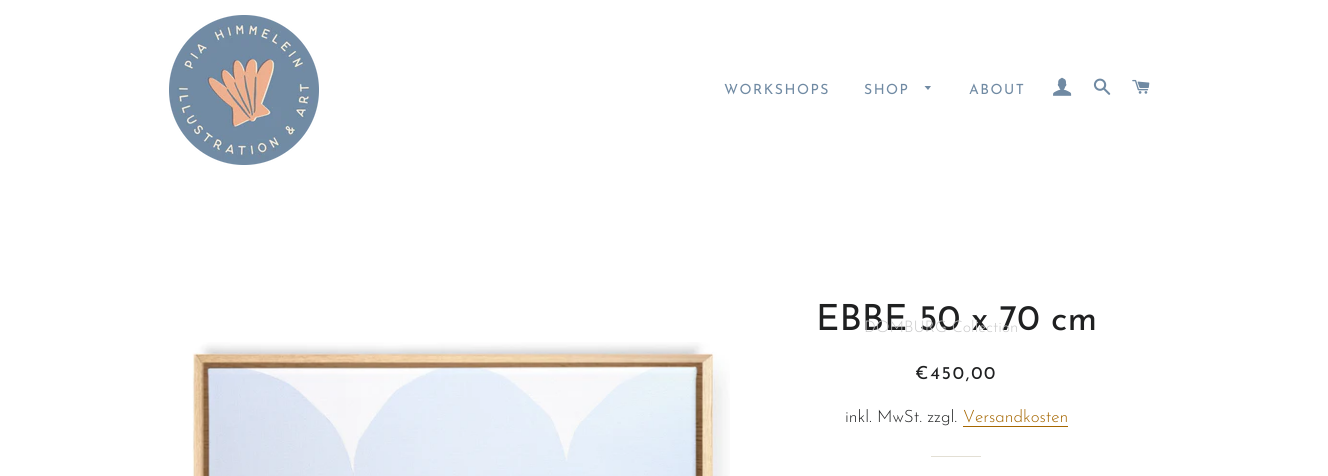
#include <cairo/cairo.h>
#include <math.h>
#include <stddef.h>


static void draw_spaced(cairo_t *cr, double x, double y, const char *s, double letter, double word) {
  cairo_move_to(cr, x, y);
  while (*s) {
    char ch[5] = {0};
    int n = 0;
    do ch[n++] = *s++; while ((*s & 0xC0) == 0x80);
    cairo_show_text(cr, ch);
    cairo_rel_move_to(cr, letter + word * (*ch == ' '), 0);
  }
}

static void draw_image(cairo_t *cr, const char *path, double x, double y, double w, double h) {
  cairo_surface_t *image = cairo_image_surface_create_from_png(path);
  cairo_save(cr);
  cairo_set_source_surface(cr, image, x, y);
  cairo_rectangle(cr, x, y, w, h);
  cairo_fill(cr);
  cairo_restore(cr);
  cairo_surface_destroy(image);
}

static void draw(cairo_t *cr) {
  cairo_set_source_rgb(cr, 1, 1, 1);
  cairo_paint(cr);
  draw_image(cr, "images/1.png", 169, 15, 150, 150);
  cairo_set_source_rgb(cr, 112 / 255.0, 138 / 255.0, 163 / 255.0);
  cairo_new_path(cr);
  cairo_move_to(cr, 924.5, 86);
  cairo_line_to(cr, 928, 90);
  cairo_line_to(cr, 931, 86);
  cairo_close_path(cr);
  cairo_fill(cr);
  draw_image(cr, "images/2.png", 1053, 77, 19, 19);
  draw_image(cr, "images/3.png", 1093, 78, 18, 17);
  draw_image(cr, "images/4.png", 1132, 79, 18, 15);
  draw_image(cr, "images/5.png", 192, 342, 538, 134);
  cairo_set_source_rgb(cr, 165 / 255.0, 102 / 255.0, 0);
  cairo_rectangle(cr, 963, 426, 105, 1);
  cairo_fill(cr);
  cairo_set_source_rgb(cr, 227 / 255.0, 223 / 255.0, 212 / 255.0);
  cairo_rectangle(cr, 931, 456, 50, 1);
  cairo_fill(cr);
  cairo_select_font_face(cr, "Josefin Sans Thin", CAIRO_FONT_SLANT_NORMAL, CAIRO_FONT_WEIGHT_NORMAL);
  cairo_set_font_size(cr, 14);
  cairo_set_source_rgb(cr, 112 / 255.0, 138 / 255.0, 163 / 255.0);
  draw_spaced(cr, 724, 94, "WORKSHOPS", 1.5, 0);
  draw_spaced(cr, 864, 94, "SHOP", 1.5, 0);
  draw_spaced(cr, 969, 94, "ABOUT", 1.5, 0);
  cairo_set_font_size(cr, 36);
  cairo_set_source_rgb(cr, 31 / 255.0, 32 / 255.0, 33 / 255.0);
  cairo_move_to(cr, 816, 330);
  cairo_show_text(cr, "EBBE 50 x 70 cm");
  cairo_select_font_face(cr, "Josefin Sans Light", CAIRO_FONT_SLANT_NORMAL, CAIRO_FONT_WEIGHT_NORMAL);
  cairo_set_font_size(cr, 16);
  cairo_set_source_rgb(cr, 200 / 255.0, 200 / 255.0, 201 / 255.0);
  cairo_move_to(cr, 864, 332);
  cairo_show_text(cr, "DOMBURG Collection");
  cairo_select_font_face(cr, "Josefin Sans Thin", CAIRO_FONT_SLANT_NORMAL, CAIRO_FONT_WEIGHT_NORMAL);
  cairo_set_font_size(cr, 18);
  cairo_set_source_rgb(cr, 31 / 255.0, 32 / 255.0, 33 / 255.0);
  draw_spaced(cr, 915, 379, "€450,00", 1.75, 0);
  cairo_select_font_face(cr, "Josefin Sans Light", CAIRO_FONT_SLANT_NORMAL, CAIRO_FONT_WEIGHT_NORMAL);
  cairo_set_font_size(cr, 17);
  cairo_move_to(cr, 845, 422);
  cairo_show_text(cr, "inkl. MwSt. zzgl.");
  cairo_set_source_rgb(cr, 165 / 255.0, 102 / 255.0, 0);
  cairo_move_to(cr, 963, 422);
  cairo_show_text(cr, "Versandkosten");
}

int main(void) {
  cairo_surface_t *surface = cairo_image_surface_create(CAIRO_FORMAT_RGB24, 1328, 476);
  cairo_t *cr = cairo_create(surface);
  cairo_font_options_t *options = cairo_font_options_create();
  cairo_font_options_set_hint_metrics(options, CAIRO_HINT_METRICS_OFF);
  cairo_font_options_set_hint_style(options, CAIRO_HINT_STYLE_NONE);
  cairo_set_font_options(cr, options);
  cairo_set_miter_limit(cr, 4);
  draw(cr);
  cairo_surface_write_to_png(surface, "out.png");
  cairo_font_options_destroy(options);
  cairo_destroy(cr);
  cairo_surface_destroy(surface);
  return 0;
}
